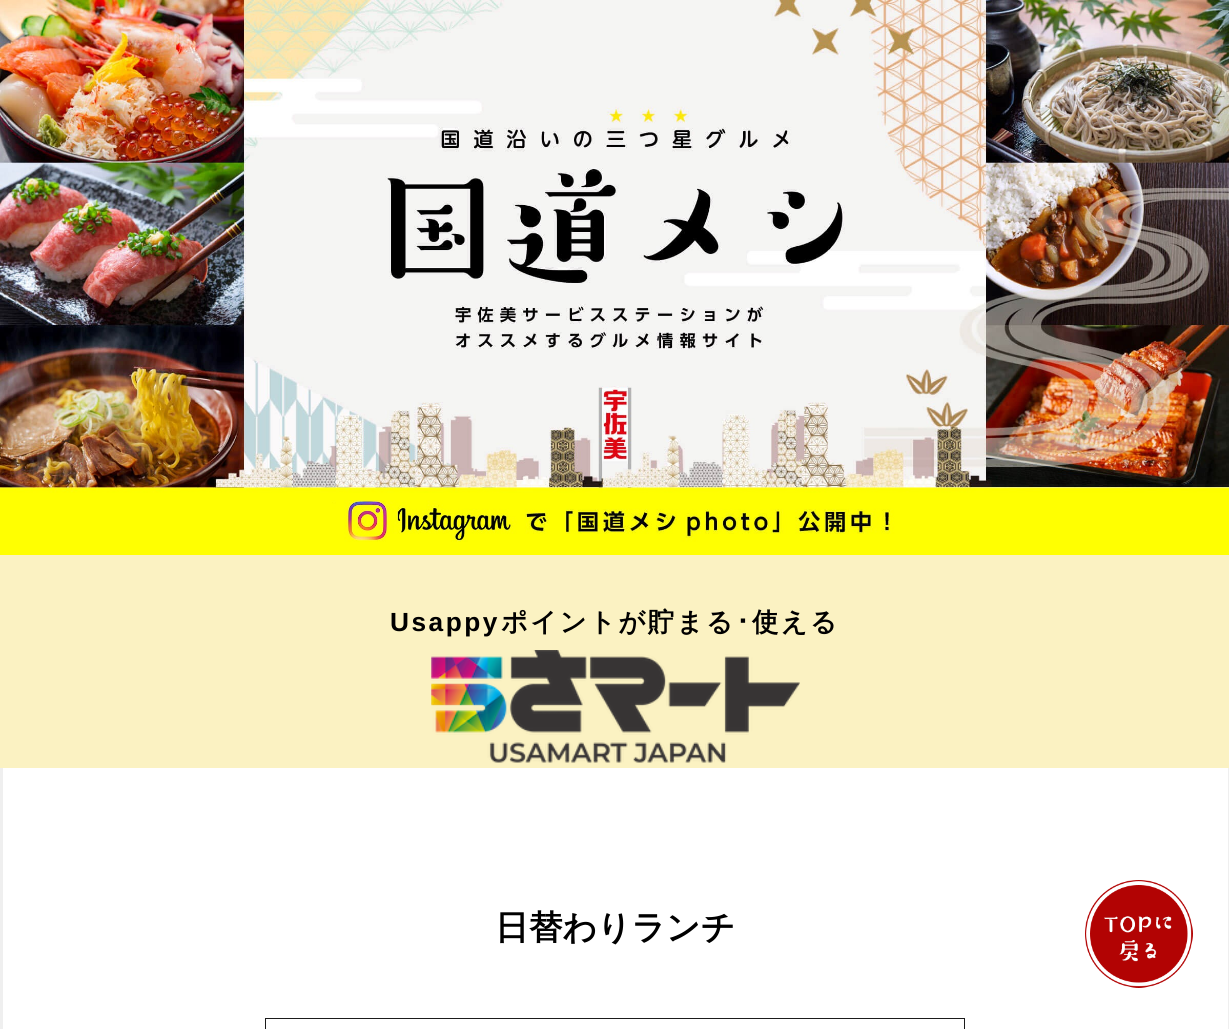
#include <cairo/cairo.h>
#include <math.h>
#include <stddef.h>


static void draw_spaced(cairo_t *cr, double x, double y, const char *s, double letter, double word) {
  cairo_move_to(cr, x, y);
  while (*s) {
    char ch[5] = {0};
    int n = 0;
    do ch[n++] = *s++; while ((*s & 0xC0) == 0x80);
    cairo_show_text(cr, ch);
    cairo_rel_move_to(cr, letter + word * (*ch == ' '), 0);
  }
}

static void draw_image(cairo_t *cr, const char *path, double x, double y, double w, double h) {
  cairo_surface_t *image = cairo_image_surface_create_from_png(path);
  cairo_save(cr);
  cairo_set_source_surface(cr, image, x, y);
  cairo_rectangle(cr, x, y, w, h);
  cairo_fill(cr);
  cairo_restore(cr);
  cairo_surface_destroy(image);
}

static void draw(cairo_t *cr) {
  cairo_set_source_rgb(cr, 251 / 255.0, 242 / 255.0, 194 / 255.0);
  cairo_paint(cr);
  draw_image(cr, "images/1.png", 0, 0, 1229, 555);
  draw_image(cr, "images/2.png", 431, 650, 369, 113);
  cairo_set_source_rgb(cr, 239 / 255.0, 239 / 255.0, 239 / 255.0);
  cairo_rectangle(cr, 0, 768, 1229, 261);
  cairo_fill(cr);
  cairo_set_source_rgb(cr, 1, 1, 1);
  cairo_rectangle(cr, 3, 768, 1225, 261);
  cairo_fill(cr);
  cairo_rectangle(cr, 265.5, 1018.5, 699, 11);
  cairo_set_source_rgb(cr, 27 / 255.0, 27 / 255.0, 27 / 255.0);
  cairo_set_line_width(cr, 1);
  cairo_stroke(cr);
  draw_image(cr, "images/3.png", 1085, 880, 108, 108);
  cairo_select_font_face(cr, "Liberation Sans", CAIRO_FONT_SLANT_NORMAL, CAIRO_FONT_WEIGHT_BOLD);
  cairo_set_font_size(cr, 26.25);
  cairo_set_source_rgb(cr, 0, 0, 0);
  draw_spaced(cr, 390, 631, "Usappy", 2.5, 0);
  cairo_select_font_face(cr, "WenQuanYi Zen Hei", CAIRO_FONT_SLANT_NORMAL, CAIRO_FONT_WEIGHT_BOLD);
  draw_spaced(cr, 501, 631, "ポイントが貯まる", 2.5, 0);
  cairo_select_font_face(cr, "IPAGothic", CAIRO_FONT_SLANT_NORMAL, CAIRO_FONT_WEIGHT_BOLD);
  draw_spaced(cr, 736, 631, "･", 2.5, 0);
  cairo_select_font_face(cr, "WenQuanYi Zen Hei", CAIRO_FONT_SLANT_NORMAL, CAIRO_FONT_WEIGHT_BOLD);
  draw_spaced(cr, 752, 631, "使える", 2.5, 0);
  cairo_set_font_size(cr, 33.75);
  cairo_move_to(cr, 495, 939);
  cairo_show_text(cr, "日替わりランチ");
}

int main(void) {
  cairo_surface_t *surface = cairo_image_surface_create(CAIRO_FORMAT_RGB24, 1229, 1029);
  cairo_t *cr = cairo_create(surface);
  cairo_font_options_t *options = cairo_font_options_create();
  cairo_font_options_set_hint_metrics(options, CAIRO_HINT_METRICS_OFF);
  cairo_font_options_set_hint_style(options, CAIRO_HINT_STYLE_NONE);
  cairo_set_font_options(cr, options);
  cairo_set_miter_limit(cr, 4);
  draw(cr);
  cairo_surface_write_to_png(surface, "out.png");
  cairo_font_options_destroy(options);
  cairo_destroy(cr);
  cairo_surface_destroy(surface);
  return 0;
}
